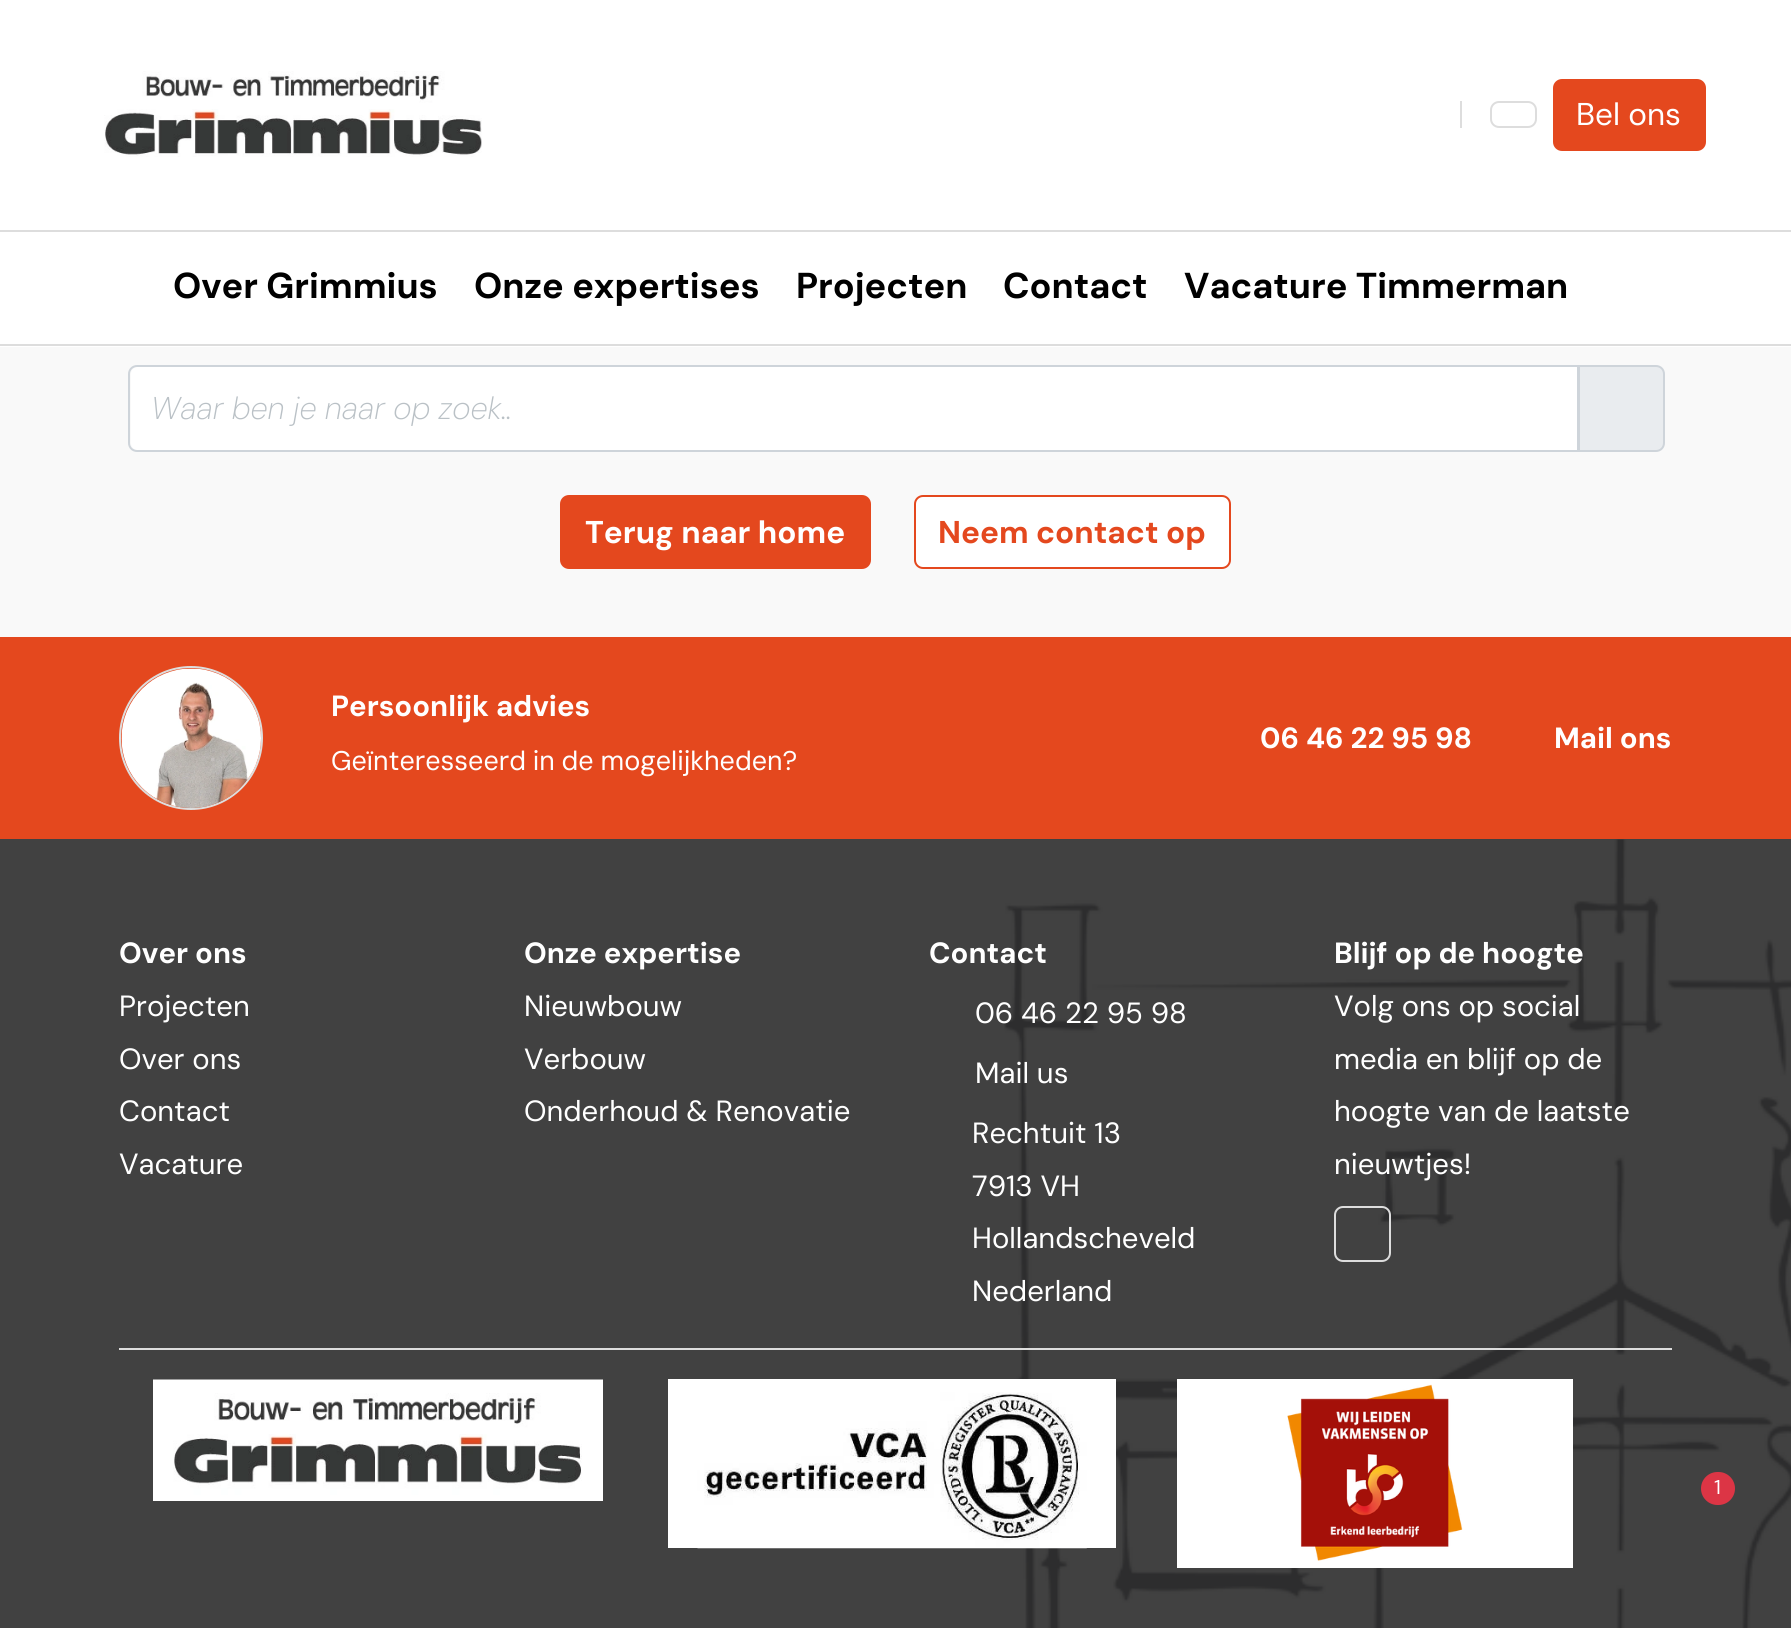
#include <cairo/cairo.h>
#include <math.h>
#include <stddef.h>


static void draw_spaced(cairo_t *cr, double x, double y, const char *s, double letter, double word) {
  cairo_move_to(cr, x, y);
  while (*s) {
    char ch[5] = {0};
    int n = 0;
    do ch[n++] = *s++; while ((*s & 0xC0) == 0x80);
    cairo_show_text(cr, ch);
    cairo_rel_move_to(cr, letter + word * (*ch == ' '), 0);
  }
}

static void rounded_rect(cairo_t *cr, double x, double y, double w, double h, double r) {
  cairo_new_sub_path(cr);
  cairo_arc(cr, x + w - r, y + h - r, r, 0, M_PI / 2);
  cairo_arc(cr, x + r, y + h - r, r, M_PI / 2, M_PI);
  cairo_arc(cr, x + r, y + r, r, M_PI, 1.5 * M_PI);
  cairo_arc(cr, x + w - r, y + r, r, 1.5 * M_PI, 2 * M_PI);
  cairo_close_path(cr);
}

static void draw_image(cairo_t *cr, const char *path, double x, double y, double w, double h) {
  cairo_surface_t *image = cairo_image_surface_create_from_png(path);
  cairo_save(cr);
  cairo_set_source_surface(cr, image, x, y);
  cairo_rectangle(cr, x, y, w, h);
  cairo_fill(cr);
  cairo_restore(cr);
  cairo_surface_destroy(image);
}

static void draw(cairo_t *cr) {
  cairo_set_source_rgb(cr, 228 / 255.0, 72 / 255.0, 30 / 255.0);
  cairo_paint(cr);
  cairo_set_source_rgb(cr, 1, 1, 1);
  cairo_rectangle(cr, 0, 0, 1791, 347);
  cairo_fill(cr);
  cairo_set_source_rgb(cr, 221 / 255.0, 221 / 255.0, 221 / 255.0);
  cairo_rectangle(cr, 0, 230, 1791, 2);
  cairo_fill(cr);
  draw_image(cr, "images/1.png", 104, 71, 378, 86);
  cairo_rectangle(cr, 1460, 101, 2, 27);
  cairo_fill(cr);
  rounded_rect(cr, 1491, 102, 45, 25, 8);
  cairo_stroke(cr);
  cairo_set_source_rgb(cr, 228 / 255.0, 72 / 255.0, 30 / 255.0);
  rounded_rect(cr, 1554, 80, 151, 70, 8);
  cairo_fill_preserve(cr);
  cairo_stroke(cr);
  cairo_set_source_rgb(cr, 221 / 255.0, 221 / 255.0, 221 / 255.0);
  cairo_rectangle(cr, 0, 344, 1791, 2);
  cairo_fill(cr);
  cairo_set_source_rgb(cr, 249 / 255.0, 249 / 255.0, 249 / 255.0);
  cairo_rectangle(cr, 0, 347, 1791, 290);
  cairo_fill(cr);
  cairo_set_source_rgb(cr, 1, 1, 1);
  cairo_new_path(cr);
  cairo_move_to(cr, 138, 367);
  cairo_line_to(cr, 1577, 367);
  cairo_line_to(cr, 1577, 450);
  cairo_line_to(cr, 138, 450);
  cairo_curve_to(cr, 134, 450, 131, 447, 131, 443);
  cairo_line_to(cr, 131, 374);
  cairo_curve_to(cr, 131, 370, 134, 367, 138, 367);
  cairo_close_path(cr);
  cairo_fill(cr);
  cairo_set_source_rgb(cr, 233 / 255.0, 236 / 255.0, 239 / 255.0);
  cairo_new_path(cr);
  cairo_move_to(cr, 1578, 366);
  cairo_line_to(cr, 1656, 366);
  cairo_curve_to(cr, 1660.5, 366, 1664, 369.5, 1664, 374);
  cairo_line_to(cr, 1664, 443);
  cairo_curve_to(cr, 1664, 447.5, 1660.5, 451, 1656, 451);
  cairo_line_to(cr, 1578, 451);
  cairo_close_path(cr);
  cairo_fill_preserve(cr);
  cairo_set_source_rgb(cr, 206 / 255.0, 212 / 255.0, 218 / 255.0);
  cairo_stroke(cr);
  cairo_new_path(cr);
  cairo_move_to(cr, 137, 366);
  cairo_line_to(cr, 1579, 366);
  cairo_line_to(cr, 1579, 451);
  cairo_line_to(cr, 137, 451);
  cairo_curve_to(cr, 132.5, 451, 129, 447.5, 129, 443);
  cairo_line_to(cr, 129, 374);
  cairo_curve_to(cr, 129, 369.5, 132.5, 366, 137, 366);
  cairo_close_path(cr);
  cairo_stroke(cr);
  cairo_set_source_rgb(cr, 228 / 255.0, 72 / 255.0, 30 / 255.0);
  rounded_rect(cr, 561, 496, 309, 72, 8);
  cairo_fill_preserve(cr);
  cairo_stroke(cr);
  cairo_set_source_rgb(cr, 1, 1, 1);
  rounded_rect(cr, 915, 496, 315, 72, 8);
  cairo_fill_preserve(cr);
  cairo_set_source_rgb(cr, 228 / 255.0, 72 / 255.0, 30 / 255.0);
  cairo_stroke(cr);
  cairo_set_source_rgb(cr, 65 / 255.0, 65 / 255.0, 65 / 255.0);
  cairo_rectangle(cr, 0, 839, 1791, 789);
  cairo_fill(cr);
  draw_image(cr, "images/3.png", 1004, 839, 787, 789);
  cairo_set_source_rgb(cr, 220 / 255.0, 53 / 255.0, 69 / 255.0);
  rounded_rect(cr, 1701, 1472, 34, 33, 16.5);
  cairo_fill(cr);
  cairo_arc(cr, 191, 738, 71, 0, 2 * M_PI);
  cairo_set_source_rgb(cr, 221 / 255.0, 221 / 255.0, 221 / 255.0);
  cairo_stroke(cr);
  draw_image(cr, "images/2.png", 121, 668, 140, 140);
  rounded_rect(cr, 1335, 1207, 55, 54, 8);
  cairo_stroke(cr);
  cairo_rectangle(cr, 119, 1348, 1553, 2);
  cairo_fill(cr);
  draw_image(cr, "images/4.png", 153, 1379, 450, 122);
  cairo_set_source_rgb(cr, 1, 1, 1);
  cairo_rectangle(cr, 668, 1379, 448, 169);
  cairo_fill(cr);
  draw_image(cr, "images/5.png", 697, 1392, 390, 157);
  cairo_rectangle(cr, 1177, 1379, 396, 189);
  cairo_fill(cr);
  draw_image(cr, "images/6.png", 1287, 1384, 176, 177);
  cairo_select_font_face(cr, "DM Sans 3", CAIRO_FONT_SLANT_NORMAL, CAIRO_FONT_WEIGHT_NORMAL);
  cairo_set_font_size(cr, 31.5);
  cairo_move_to(cr, 1576, 125);
  cairo_show_text(cr, "Bel ons");
  cairo_select_font_face(cr, "DM Sans 3", CAIRO_FONT_SLANT_NORMAL, CAIRO_FONT_WEIGHT_BOLD);
  cairo_set_font_size(cr, 36);
  cairo_set_source_rgb(cr, 0, 0, 0);
  cairo_move_to(cr, 173, 298);
  cairo_show_text(cr, "Over Grimmius");
  cairo_move_to(cr, 474, 298);
  cairo_show_text(cr, "Onze expertises");
  cairo_move_to(cr, 796, 298);
  cairo_show_text(cr, "Projecten");
  cairo_move_to(cr, 1003, 298);
  cairo_show_text(cr, "Contact");
  cairo_move_to(cr, 1184, 298);
  cairo_show_text(cr, "Vacature Timmerman");
  cairo_select_font_face(cr, "DM Sans ExtraLight", CAIRO_FONT_SLANT_ITALIC, CAIRO_FONT_WEIGHT_NORMAL);
  cairo_set_font_size(cr, 31.5);
  cairo_set_source_rgb(cr, 186 / 255.0, 193 / 255.0, 198 / 255.0);
  cairo_move_to(cr, 151, 419);
  cairo_show_text(cr, "Waar ben je naar op zoek..");
  cairo_select_font_face(cr, "DM Sans", CAIRO_FONT_SLANT_NORMAL, CAIRO_FONT_WEIGHT_BOLD);
  cairo_set_source_rgb(cr, 1, 1, 1);
  cairo_move_to(cr, 585, 543);
  cairo_show_text(cr, "Terug naar home");
  cairo_set_source_rgb(cr, 228 / 255.0, 72 / 255.0, 30 / 255.0);
  cairo_move_to(cr, 938, 543);
  cairo_show_text(cr, "Neem contact op");
  cairo_select_font_face(cr, "DM Sans", CAIRO_FONT_SLANT_NORMAL, CAIRO_FONT_WEIGHT_NORMAL);
  cairo_set_font_size(cr, 20);
  cairo_set_source_rgb(cr, 1, 1, 1);
  cairo_move_to(cr, 1714, 1494);
  cairo_show_text(cr, "1");
  cairo_select_font_face(cr, "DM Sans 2", CAIRO_FONT_SLANT_NORMAL, CAIRO_FONT_WEIGHT_BOLD);
  cairo_set_font_size(cr, 29.25);
  cairo_move_to(cr, 331, 716);
  cairo_show_text(cr, "Persoonlijk advies");
  cairo_move_to(cr, 1260, 748);
  cairo_show_text(cr, "06 46 22 95 98");
  cairo_move_to(cr, 1554, 748);
  cairo_show_text(cr, "Mail ons");
  cairo_select_font_face(cr, "DM Sans", CAIRO_FONT_SLANT_NORMAL, CAIRO_FONT_WEIGHT_NORMAL);
  cairo_set_font_size(cr, 27);
  draw_spaced(cr, 331, 770, "Geïnteresseerd in de mogelijkheden?", 0, -0.5);
  cairo_select_font_face(cr, "DM Sans 2", CAIRO_FONT_SLANT_NORMAL, CAIRO_FONT_WEIGHT_BOLD);
  cairo_set_font_size(cr, 29.25);
  cairo_move_to(cr, 119, 963);
  cairo_show_text(cr, "Over ons");
  cairo_select_font_face(cr, "DM Sans 2", CAIRO_FONT_SLANT_NORMAL, CAIRO_FONT_WEIGHT_NORMAL);
  cairo_move_to(cr, 119, 1016);
  cairo_show_text(cr, "Projecten");
  cairo_move_to(cr, 119, 1069);
  cairo_show_text(cr, "Over ons");
  cairo_move_to(cr, 119, 1121);
  cairo_show_text(cr, "Contact");
  cairo_move_to(cr, 119, 1174);
  cairo_show_text(cr, "Vacature");
  cairo_select_font_face(cr, "DM Sans 2", CAIRO_FONT_SLANT_NORMAL, CAIRO_FONT_WEIGHT_BOLD);
  cairo_move_to(cr, 524, 963);
  cairo_show_text(cr, "Onze expertise");
  cairo_select_font_face(cr, "DM Sans 2", CAIRO_FONT_SLANT_NORMAL, CAIRO_FONT_WEIGHT_NORMAL);
  cairo_move_to(cr, 524, 1016);
  cairo_show_text(cr, "Nieuwbouw");
  cairo_move_to(cr, 524, 1069);
  cairo_show_text(cr, "Verbouw");
  cairo_move_to(cr, 524, 1121);
  cairo_show_text(cr, "Onderhoud & Renovatie");
  cairo_select_font_face(cr, "DM Sans 2", CAIRO_FONT_SLANT_NORMAL, CAIRO_FONT_WEIGHT_BOLD);
  cairo_move_to(cr, 929, 963);
  cairo_show_text(cr, "Contact");
  cairo_select_font_face(cr, "DM Sans 2", CAIRO_FONT_SLANT_NORMAL, CAIRO_FONT_WEIGHT_NORMAL);
  cairo_move_to(cr, 975, 1023);
  cairo_show_text(cr, "06 46 22 95 98");
  cairo_move_to(cr, 975, 1083);
  cairo_show_text(cr, "Mail us");
  cairo_move_to(cr, 972, 1143);
  cairo_show_text(cr, "Rechtuit 13");
  cairo_move_to(cr, 972, 1196);
  cairo_show_text(cr, "7913 VH");
  cairo_move_to(cr, 972, 1248);
  cairo_show_text(cr, "Hollandscheveld");
  cairo_move_to(cr, 972, 1301);
  cairo_show_text(cr, "Nederland");
  cairo_select_font_face(cr, "DM Sans 2", CAIRO_FONT_SLANT_NORMAL, CAIRO_FONT_WEIGHT_BOLD);
  cairo_move_to(cr, 1334, 963);
  cairo_show_text(cr, "Blijf op de hoogte");
  cairo_select_font_face(cr, "DM Sans 2", CAIRO_FONT_SLANT_NORMAL, CAIRO_FONT_WEIGHT_NORMAL);
  cairo_move_to(cr, 1334, 1016);
  cairo_show_text(cr, "Volg ons op social");
  cairo_move_to(cr, 1334, 1069);
  cairo_show_text(cr, "media en blijf op de");
  cairo_move_to(cr, 1334, 1121);
  cairo_show_text(cr, "hoogte van de laatste");
  cairo_move_to(cr, 1334, 1174);
  cairo_show_text(cr, "nieuwtjes!");
}

int main(void) {
  cairo_surface_t *surface = cairo_image_surface_create(CAIRO_FORMAT_RGB24, 1791, 1628);
  cairo_t *cr = cairo_create(surface);
  cairo_font_options_t *options = cairo_font_options_create();
  cairo_font_options_set_hint_metrics(options, CAIRO_HINT_METRICS_OFF);
  cairo_font_options_set_hint_style(options, CAIRO_HINT_STYLE_NONE);
  cairo_set_font_options(cr, options);
  cairo_set_miter_limit(cr, 4);
  draw(cr);
  cairo_surface_write_to_png(surface, "out.png");
  cairo_font_options_destroy(options);
  cairo_destroy(cr);
  cairo_surface_destroy(surface);
  return 0;
}
